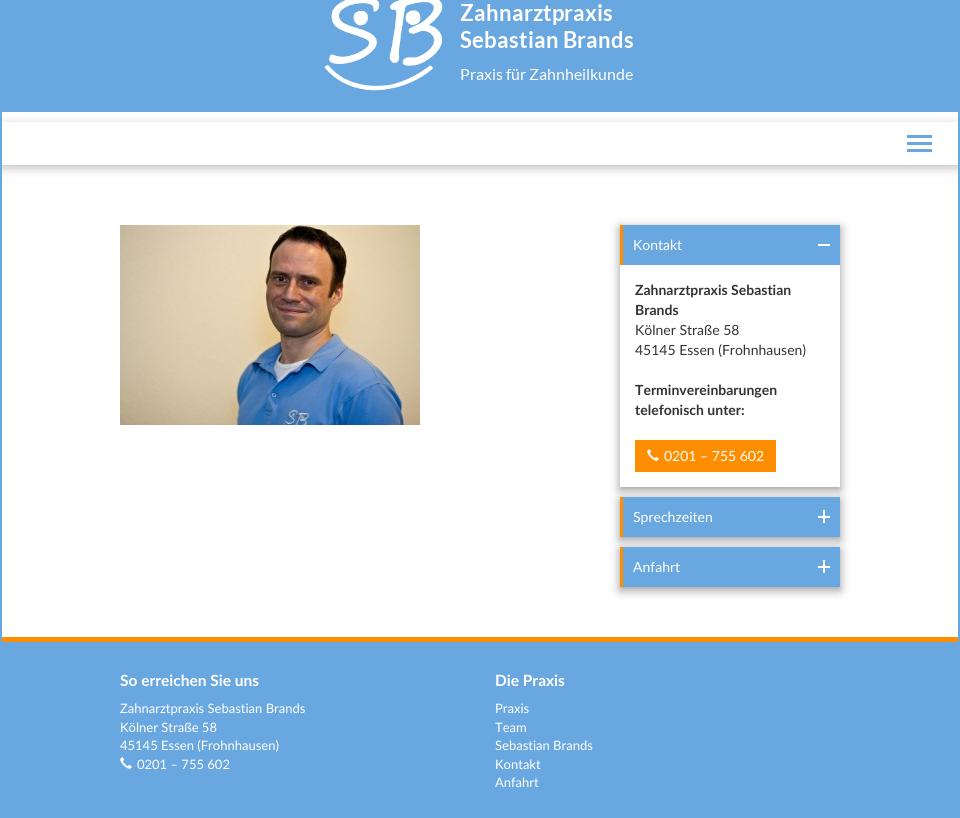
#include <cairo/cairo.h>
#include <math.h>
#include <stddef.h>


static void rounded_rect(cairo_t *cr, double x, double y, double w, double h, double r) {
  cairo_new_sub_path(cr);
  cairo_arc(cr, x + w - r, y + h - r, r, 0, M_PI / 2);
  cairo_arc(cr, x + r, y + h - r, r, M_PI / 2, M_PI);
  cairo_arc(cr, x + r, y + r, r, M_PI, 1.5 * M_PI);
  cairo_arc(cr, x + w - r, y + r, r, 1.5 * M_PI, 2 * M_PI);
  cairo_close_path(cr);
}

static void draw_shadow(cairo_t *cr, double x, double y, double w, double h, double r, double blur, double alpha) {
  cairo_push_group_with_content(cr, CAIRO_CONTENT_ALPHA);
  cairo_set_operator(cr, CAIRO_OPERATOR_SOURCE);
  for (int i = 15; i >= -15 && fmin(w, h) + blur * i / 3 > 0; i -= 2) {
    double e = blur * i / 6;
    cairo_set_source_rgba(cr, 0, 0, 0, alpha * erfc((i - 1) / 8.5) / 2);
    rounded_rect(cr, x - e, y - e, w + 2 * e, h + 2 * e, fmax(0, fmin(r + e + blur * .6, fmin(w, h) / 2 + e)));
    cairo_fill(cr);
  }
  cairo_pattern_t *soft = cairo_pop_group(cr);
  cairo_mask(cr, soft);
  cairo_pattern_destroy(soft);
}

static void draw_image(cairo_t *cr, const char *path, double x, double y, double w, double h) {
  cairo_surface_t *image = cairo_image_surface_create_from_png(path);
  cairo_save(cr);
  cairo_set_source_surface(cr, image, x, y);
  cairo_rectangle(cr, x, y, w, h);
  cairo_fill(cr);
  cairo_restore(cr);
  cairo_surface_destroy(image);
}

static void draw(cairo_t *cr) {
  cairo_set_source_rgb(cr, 1, 1, 1);
  cairo_paint(cr);
  cairo_set_source_rgb(cr, 105 / 255.0, 167 / 255.0, 224 / 255.0);
  cairo_rectangle(cr, 958, 0, 2, 818);
  cairo_fill(cr);
  cairo_rectangle(cr, 0, 0, 2, 818);
  cairo_fill(cr);
  cairo_rectangle(cr, 2, 0, 956, 112);
  cairo_fill(cr);
  draw_image(cr, "images/1.png", 324, 0, 309, 91);
  cairo_save(cr);
  cairo_rectangle(cr, 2, 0, 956, 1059);
  cairo_clip(cr);
  cairo_set_fill_rule(cr, CAIRO_FILL_RULE_EVEN_ODD);
  cairo_new_path(cr);
  cairo_move_to(cr, 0, 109);
  cairo_line_to(cr, 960, 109);
  cairo_line_to(cr, 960, 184);
  cairo_line_to(cr, 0, 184);
  cairo_close_path(cr);
  cairo_move_to(cr, 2, 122);
  cairo_line_to(cr, 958, 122);
  cairo_line_to(cr, 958, 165);
  cairo_line_to(cr, 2, 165);
  cairo_close_path(cr);
  cairo_clip(cr);
  cairo_set_source_rgb(cr, 0, 0, 0);
  draw_shadow(cr, 2, 125, 956, 43, 0, 5, 0.25);
  cairo_restore(cr);
  cairo_rectangle(cr, 907, 142, 25, 3);
  cairo_fill(cr);
  cairo_rectangle(cr, 907, 135, 25, 3);
  cairo_fill(cr);
  cairo_rectangle(cr, 907, 149, 25, 3);
  cairo_fill(cr);
  draw_image(cr, "images/2.png", 120, 225, 300, 200);
  cairo_save(cr);
  cairo_set_fill_rule(cr, CAIRO_FILL_RULE_EVEN_ODD);
  cairo_new_path(cr);
  cairo_move_to(cr, 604, 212);
  cairo_line_to(cr, 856, 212);
  cairo_line_to(cr, 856, 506);
  cairo_line_to(cr, 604, 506);
  cairo_close_path(cr);
  cairo_move_to(cr, 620, 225);
  cairo_line_to(cr, 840, 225);
  cairo_line_to(cr, 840, 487);
  cairo_line_to(cr, 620, 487);
  cairo_close_path(cr);
  cairo_clip(cr);
  cairo_set_source_rgb(cr, 153 / 255.0, 153 / 255.0, 153 / 255.0);
  draw_shadow(cr, 620, 228, 220, 262, 0, 5, 1);
  cairo_restore(cr);
  cairo_rectangle(cr, 623, 225, 217, 40);
  cairo_fill(cr);
  cairo_set_source_rgb(cr, 1, 1, 1);
  cairo_rectangle(cr, 818, 244, 12, 2);
  cairo_fill(cr);
  cairo_set_source_rgb(cr, 1, 141 / 255.0, 0);
  cairo_rectangle(cr, 620, 225, 3, 40);
  cairo_fill(cr);
  cairo_rectangle(cr, 635, 440, 141, 32);
  cairo_fill(cr);
  draw_image(cr, "images/3.png", 647, 449, 12, 12);
  cairo_set_source_rgb(cr, 153 / 255.0, 153 / 255.0, 153 / 255.0);
  draw_shadow(cr, 620, 500, 220, 40, 0, 5, 1);
  cairo_set_source_rgb(cr, 105 / 255.0, 167 / 255.0, 224 / 255.0);
  cairo_rectangle(cr, 623, 497, 217, 40);
  cairo_fill(cr);
  cairo_set_source_rgb(cr, 1, 1, 1);
  cairo_rectangle(cr, 823, 510, 2, 13);
  cairo_fill(cr);
  cairo_rectangle(cr, 818, 516, 12, 2);
  cairo_fill(cr);
  cairo_set_source_rgb(cr, 1, 141 / 255.0, 0);
  cairo_rectangle(cr, 620, 497, 3, 40);
  cairo_fill(cr);
  cairo_set_source_rgb(cr, 153 / 255.0, 153 / 255.0, 153 / 255.0);
  draw_shadow(cr, 620, 550, 220, 40, 0, 5, 1);
  cairo_set_source_rgb(cr, 105 / 255.0, 167 / 255.0, 224 / 255.0);
  cairo_rectangle(cr, 623, 547, 217, 40);
  cairo_fill(cr);
  cairo_set_source_rgb(cr, 1, 1, 1);
  cairo_rectangle(cr, 823, 560, 2, 13);
  cairo_fill(cr);
  cairo_rectangle(cr, 818, 566, 12, 2);
  cairo_fill(cr);
  cairo_set_source_rgb(cr, 1, 141 / 255.0, 0);
  cairo_rectangle(cr, 620, 547, 3, 40);
  cairo_fill(cr);
  cairo_set_source_rgb(cr, 105 / 255.0, 167 / 255.0, 224 / 255.0);
  cairo_rectangle(cr, 2, 642, 956, 176);
  cairo_fill(cr);
  cairo_set_source_rgb(cr, 1, 141 / 255.0, 0);
  cairo_rectangle(cr, 2, 637, 956, 5);
  cairo_fill(cr);
  draw_image(cr, "images/4.png", 120, 757, 12, 12);
  cairo_select_font_face(cr, "Lato", CAIRO_FONT_SLANT_NORMAL, CAIRO_FONT_WEIGHT_NORMAL);
  cairo_set_font_size(cr, 14);
  cairo_set_source_rgb(cr, 1, 1, 1);
  cairo_move_to(cr, 633, 250);
  cairo_show_text(cr, "Kontakt");
  cairo_select_font_face(cr, "Lato", CAIRO_FONT_SLANT_NORMAL, CAIRO_FONT_WEIGHT_BOLD);
  cairo_set_source_rgb(cr, 51 / 255.0, 51 / 255.0, 51 / 255.0);
  cairo_move_to(cr, 635, 295);
  cairo_show_text(cr, "Zahnarztpraxis Sebastian");
  cairo_move_to(cr, 635, 315);
  cairo_show_text(cr, "Brands");
  cairo_select_font_face(cr, "Lato", CAIRO_FONT_SLANT_NORMAL, CAIRO_FONT_WEIGHT_NORMAL);
  cairo_move_to(cr, 635, 335);
  cairo_show_text(cr, "Kölner Straße 58");
  cairo_move_to(cr, 635, 355);
  cairo_show_text(cr, "45145 Essen (Frohnhausen)");
  cairo_select_font_face(cr, "Lato", CAIRO_FONT_SLANT_NORMAL, CAIRO_FONT_WEIGHT_BOLD);
  cairo_move_to(cr, 635, 395);
  cairo_show_text(cr, "Terminvereinbarungen");
  cairo_move_to(cr, 635, 415);
  cairo_show_text(cr, "telefonisch unter:");
  cairo_select_font_face(cr, "Lato", CAIRO_FONT_SLANT_NORMAL, CAIRO_FONT_WEIGHT_NORMAL);
  cairo_set_source_rgb(cr, 1, 1, 1);
  cairo_move_to(cr, 664, 461);
  cairo_show_text(cr, "0201 – 755 602");
  cairo_move_to(cr, 633, 522);
  cairo_show_text(cr, "Sprechzeiten");
  cairo_move_to(cr, 633, 572);
  cairo_show_text(cr, "Anfahrt");
  cairo_select_font_face(cr, "Lato", CAIRO_FONT_SLANT_NORMAL, CAIRO_FONT_WEIGHT_BOLD);
  cairo_set_font_size(cr, 15.5);
  cairo_move_to(cr, 120, 686);
  cairo_show_text(cr, "So erreichen Sie uns");
  cairo_select_font_face(cr, "Lato", CAIRO_FONT_SLANT_NORMAL, CAIRO_FONT_WEIGHT_NORMAL);
  cairo_set_font_size(cr, 13);
  cairo_move_to(cr, 120, 713);
  cairo_show_text(cr, "Zahnarztpraxis Sebastian Brands");
  cairo_move_to(cr, 120, 732);
  cairo_show_text(cr, "Kölner Straße 58");
  cairo_move_to(cr, 120, 750);
  cairo_show_text(cr, "45145 Essen (Frohnhausen)");
  cairo_move_to(cr, 137, 769);
  cairo_show_text(cr, "0201 – 755 602");
  cairo_select_font_face(cr, "Lato", CAIRO_FONT_SLANT_NORMAL, CAIRO_FONT_WEIGHT_BOLD);
  cairo_set_font_size(cr, 15.5);
  cairo_move_to(cr, 495, 686);
  cairo_show_text(cr, "Die Praxis");
  cairo_select_font_face(cr, "Lato", CAIRO_FONT_SLANT_NORMAL, CAIRO_FONT_WEIGHT_NORMAL);
  cairo_set_font_size(cr, 13);
  cairo_move_to(cr, 495, 713);
  cairo_show_text(cr, "Praxis");
  cairo_move_to(cr, 495, 732);
  cairo_show_text(cr, "Team");
  cairo_move_to(cr, 495, 750);
  cairo_show_text(cr, "Sebastian Brands");
  cairo_move_to(cr, 495, 769);
  cairo_show_text(cr, "Kontakt");
  cairo_move_to(cr, 495, 787);
  cairo_show_text(cr, "Anfahrt");
}

int main(void) {
  cairo_surface_t *surface = cairo_image_surface_create(CAIRO_FORMAT_RGB24, 960, 818);
  cairo_t *cr = cairo_create(surface);
  cairo_font_options_t *options = cairo_font_options_create();
  cairo_font_options_set_hint_metrics(options, CAIRO_HINT_METRICS_OFF);
  cairo_font_options_set_hint_style(options, CAIRO_HINT_STYLE_NONE);
  cairo_set_font_options(cr, options);
  cairo_set_miter_limit(cr, 4);
  draw(cr);
  cairo_surface_write_to_png(surface, "out.png");
  cairo_font_options_destroy(options);
  cairo_destroy(cr);
  cairo_surface_destroy(surface);
  return 0;
}
